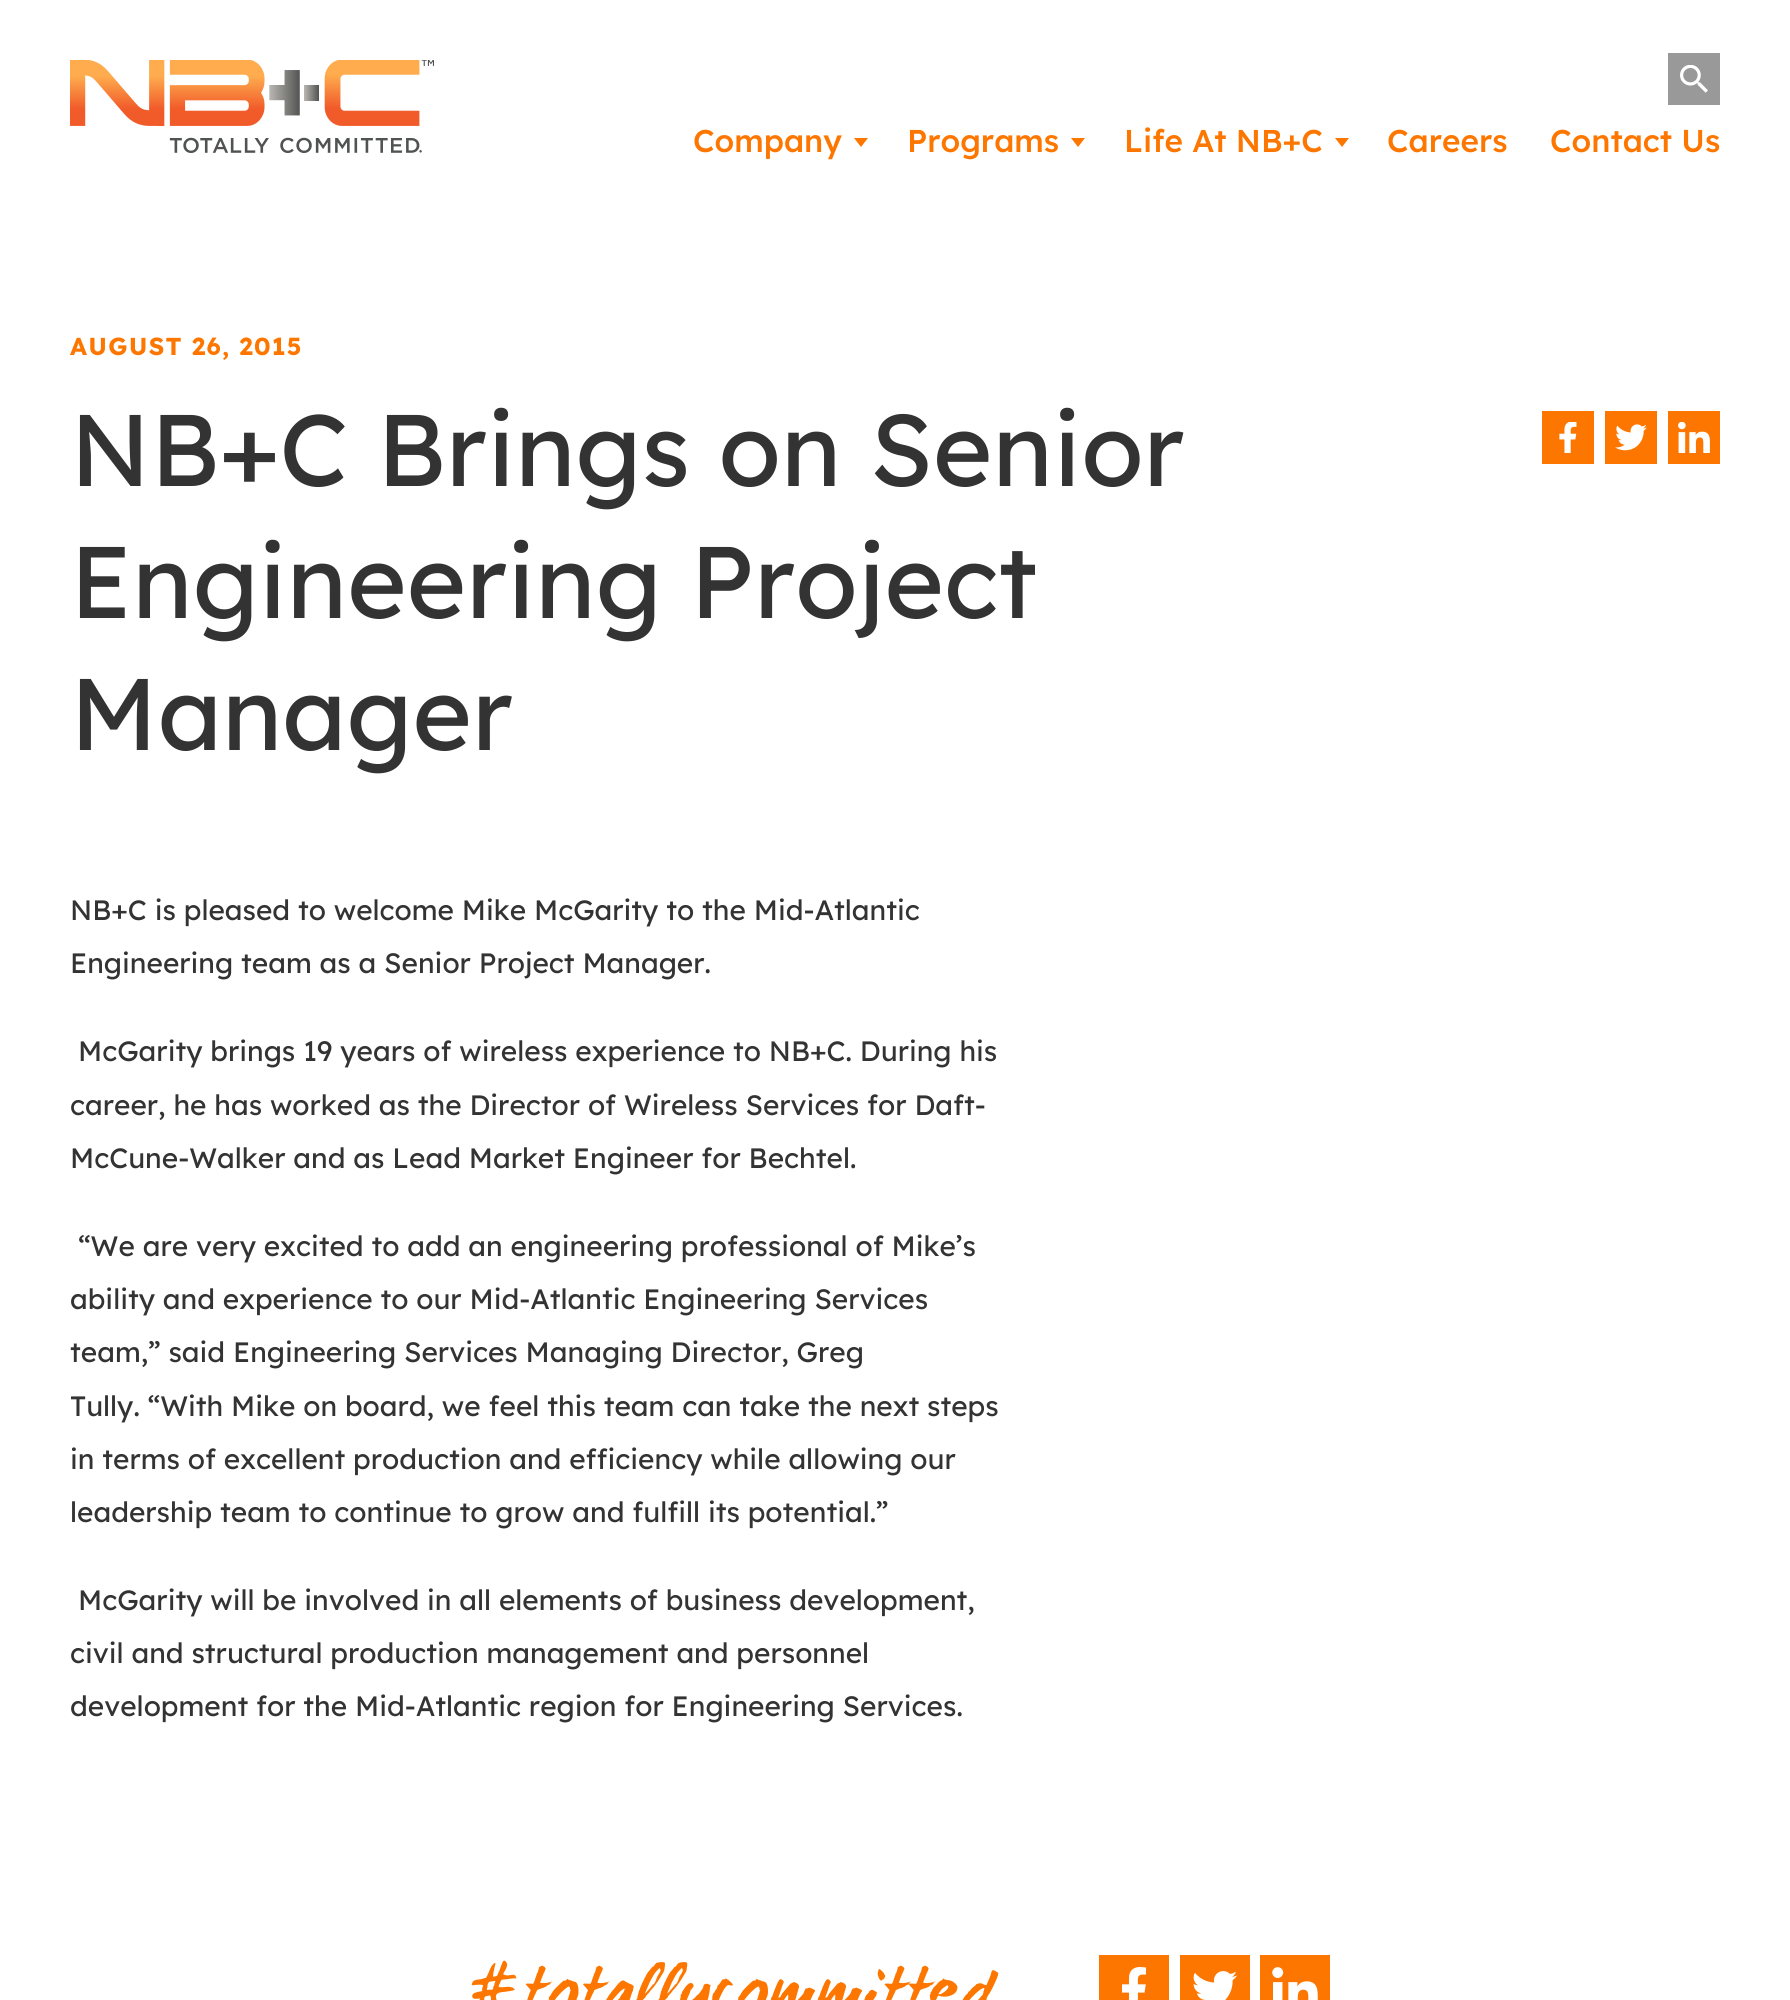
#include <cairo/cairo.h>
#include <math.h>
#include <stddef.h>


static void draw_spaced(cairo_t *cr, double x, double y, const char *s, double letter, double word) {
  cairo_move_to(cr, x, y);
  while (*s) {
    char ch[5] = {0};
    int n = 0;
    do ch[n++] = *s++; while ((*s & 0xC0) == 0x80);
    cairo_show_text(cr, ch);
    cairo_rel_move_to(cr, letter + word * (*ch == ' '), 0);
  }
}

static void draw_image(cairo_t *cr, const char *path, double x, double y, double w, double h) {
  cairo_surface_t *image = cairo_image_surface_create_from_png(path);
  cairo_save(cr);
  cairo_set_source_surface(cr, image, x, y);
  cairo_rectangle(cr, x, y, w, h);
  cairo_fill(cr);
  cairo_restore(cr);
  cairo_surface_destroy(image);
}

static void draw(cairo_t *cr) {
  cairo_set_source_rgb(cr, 1, 1, 1);
  cairo_paint(cr);
  draw_image(cr, "images/1.png", 70, 60, 364, 93);
  cairo_set_source_rgb(cr, 153 / 255.0, 153 / 255.0, 153 / 255.0);
  cairo_rectangle(cr, 1668, 53, 52, 52);
  cairo_fill(cr);
  draw_image(cr, "images/2.png", 1680, 65, 28, 28);
  cairo_set_source_rgb(cr, 253 / 255.0, 119 / 255.0, 0);
  cairo_new_path(cr);
  cairo_move_to(cr, 854, 138);
  cairo_line_to(cr, 868, 138);
  cairo_line_to(cr, 861, 147);
  cairo_close_path(cr);
  cairo_fill(cr);
  cairo_new_path(cr);
  cairo_move_to(cr, 1071, 138);
  cairo_line_to(cr, 1085, 138);
  cairo_line_to(cr, 1078, 147);
  cairo_close_path(cr);
  cairo_fill(cr);
  cairo_new_path(cr);
  cairo_move_to(cr, 1335, 138);
  cairo_line_to(cr, 1349, 138);
  cairo_line_to(cr, 1342, 147);
  cairo_close_path(cr);
  cairo_fill(cr);
  cairo_rectangle(cr, 1542, 411, 52, 53);
  cairo_fill(cr);
  draw_image(cr, "images/3.png", 1559, 422, 18, 31);
  cairo_rectangle(cr, 1605, 411, 52, 53);
  cairo_fill(cr);
  draw_image(cr, "images/4.png", 1615, 424, 32, 27);
  cairo_rectangle(cr, 1668, 411, 52, 53);
  cairo_fill(cr);
  draw_image(cr, "images/5.png", 1678, 422, 32, 31);
  cairo_rectangle(cr, 1099, 1955, 70, 45);
  cairo_fill(cr);
  draw_image(cr, "images/6.png", 1122, 1967, 24, 33);
  cairo_rectangle(cr, 1180, 1955, 70, 45);
  cairo_fill(cr);
  draw_image(cr, "images/7.png", 1193, 1971, 44, 29);
  cairo_rectangle(cr, 1260, 1955, 70, 45);
  cairo_fill(cr);
  draw_image(cr, "images/8.png", 1272, 1967, 46, 33);
  cairo_select_font_face(cr, "Lexend Medium", CAIRO_FONT_SLANT_NORMAL, CAIRO_FONT_WEIGHT_NORMAL);
  cairo_set_font_size(cr, 31.5);
  cairo_move_to(cr, 693, 152);
  cairo_show_text(cr, "Company");
  cairo_move_to(cr, 907, 152);
  cairo_show_text(cr, "Programs");
  cairo_move_to(cr, 1124, 152);
  cairo_show_text(cr, "Life At NB+C");
  cairo_move_to(cr, 1387, 152);
  cairo_show_text(cr, "Careers");
  cairo_move_to(cr, 1550, 152);
  cairo_show_text(cr, "Contact Us");
  cairo_select_font_face(cr, "Lexend", CAIRO_FONT_SLANT_NORMAL, CAIRO_FONT_WEIGHT_BOLD);
  cairo_set_font_size(cr, 24.5);
  draw_spaced(cr, 70, 355, "AUGUST 26, 2015", 1.25, 0);
  cairo_select_font_face(cr, "Lexend", CAIRO_FONT_SLANT_NORMAL, CAIRO_FONT_WEIGHT_NORMAL);
  cairo_set_font_size(cr, 101.5);
  cairo_set_source_rgb(cr, 51 / 255.0, 51 / 255.0, 51 / 255.0);
  cairo_move_to(cr, 70, 486);
  cairo_show_text(cr, "NB+C Brings on Senior");
  cairo_move_to(cr, 70, 618);
  cairo_show_text(cr, "Engineering Project");
  cairo_move_to(cr, 70, 750);
  cairo_show_text(cr, "Manager");
  cairo_set_font_size(cr, 28);
  cairo_move_to(cr, 70, 920);
  cairo_show_text(cr, "NB+C is pleased to welcome Mike McGarity to the Mid-Atlantic");
  cairo_move_to(cr, 70, 973);
  cairo_show_text(cr, "Engineering team as a Senior Project Manager.");
  cairo_move_to(cr, 78, 1061);
  cairo_show_text(cr, "McGarity brings 19 years of wireless experience to NB+C. During his");
  cairo_move_to(cr, 70, 1115);
  cairo_show_text(cr, "career, he has worked as the Director of Wireless Services for Daft-");
  cairo_move_to(cr, 70, 1168);
  cairo_show_text(cr, "McCune-Walker and as Lead Market Engineer for Bechtel.");
  cairo_move_to(cr, 78, 1256);
  cairo_show_text(cr, "“We are very excited to add an engineering professional of Mike’s");
  cairo_move_to(cr, 70, 1309);
  cairo_show_text(cr, "ability and experience to our Mid-Atlantic Engineering Services");
  cairo_move_to(cr, 70, 1362);
  cairo_show_text(cr, "team,” said Engineering Services Managing Director, Greg");
  cairo_move_to(cr, 70, 1416);
  cairo_show_text(cr, "Tully. “With Mike on board, we feel this team can take the next steps");
  cairo_move_to(cr, 70, 1469);
  cairo_show_text(cr, "in terms of excellent production and efficiency while allowing our");
  cairo_move_to(cr, 70, 1522);
  cairo_show_text(cr, "leadership team to continue to grow and fulfill its potential.”");
  cairo_move_to(cr, 78, 1610);
  cairo_show_text(cr, "McGarity will be involved in all elements of business development,");
  cairo_move_to(cr, 70, 1663);
  cairo_show_text(cr, "civil and structural production management and personnel");
  cairo_move_to(cr, 70, 1716);
  cairo_show_text(cr, "development for the Mid-Atlantic region for Engineering Services.");
  cairo_select_font_face(cr, "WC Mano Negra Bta", CAIRO_FONT_SLANT_NORMAL, CAIRO_FONT_WEIGHT_NORMAL);
  cairo_set_font_size(cr, 70);
  cairo_set_source_rgb(cr, 253 / 255.0, 119 / 255.0, 0);
  cairo_move_to(cr, 460, 2008);
  cairo_show_text(cr, "#totallycommitted");
}

int main(void) {
  cairo_surface_t *surface = cairo_image_surface_create(CAIRO_FORMAT_RGB24, 1790, 2000);
  cairo_t *cr = cairo_create(surface);
  cairo_font_options_t *options = cairo_font_options_create();
  cairo_font_options_set_hint_metrics(options, CAIRO_HINT_METRICS_OFF);
  cairo_font_options_set_hint_style(options, CAIRO_HINT_STYLE_NONE);
  cairo_set_font_options(cr, options);
  cairo_set_miter_limit(cr, 4);
  draw(cr);
  cairo_surface_write_to_png(surface, "out.png");
  cairo_font_options_destroy(options);
  cairo_destroy(cr);
  cairo_surface_destroy(surface);
  return 0;
}
